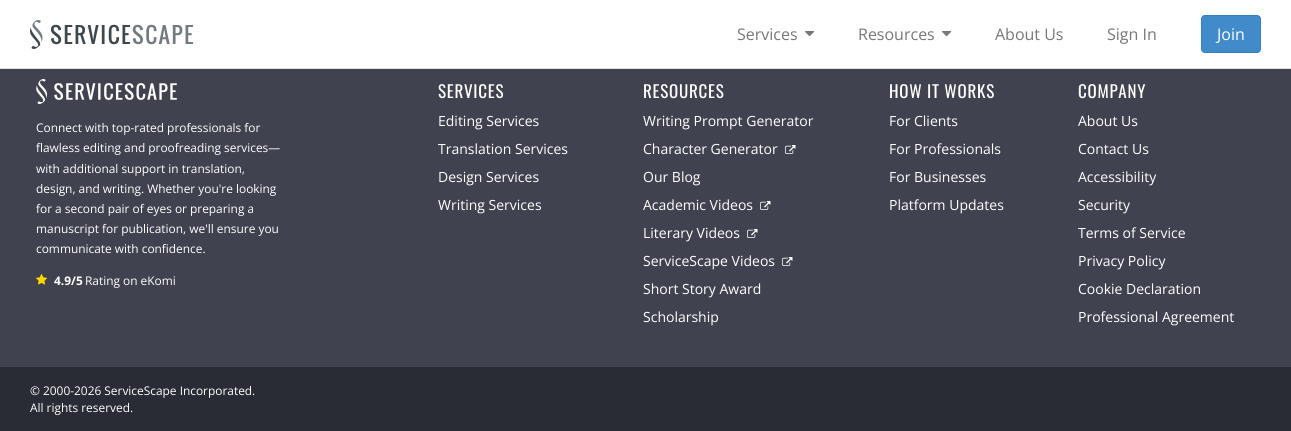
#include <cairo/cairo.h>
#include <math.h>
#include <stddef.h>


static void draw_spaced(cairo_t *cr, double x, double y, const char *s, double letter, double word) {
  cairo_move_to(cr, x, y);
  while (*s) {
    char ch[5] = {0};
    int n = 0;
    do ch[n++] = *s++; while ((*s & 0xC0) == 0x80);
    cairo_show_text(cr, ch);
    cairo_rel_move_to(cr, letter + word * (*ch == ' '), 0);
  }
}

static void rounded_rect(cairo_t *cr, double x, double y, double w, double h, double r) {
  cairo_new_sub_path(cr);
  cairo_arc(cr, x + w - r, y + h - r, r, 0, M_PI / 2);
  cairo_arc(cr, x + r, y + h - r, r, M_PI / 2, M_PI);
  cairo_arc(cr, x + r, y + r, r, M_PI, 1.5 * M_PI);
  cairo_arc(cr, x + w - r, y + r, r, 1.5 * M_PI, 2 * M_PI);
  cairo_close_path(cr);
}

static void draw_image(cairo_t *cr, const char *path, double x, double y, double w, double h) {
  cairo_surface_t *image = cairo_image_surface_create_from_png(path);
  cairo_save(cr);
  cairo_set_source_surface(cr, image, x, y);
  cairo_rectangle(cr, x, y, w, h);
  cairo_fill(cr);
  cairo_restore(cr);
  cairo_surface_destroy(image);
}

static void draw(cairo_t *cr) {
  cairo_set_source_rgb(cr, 64 / 255.0, 67 / 255.0, 79 / 255.0);
  cairo_paint(cr);
  cairo_set_source_rgb(cr, 227 / 255.0, 227 / 255.0, 227 / 255.0);
  cairo_rectangle(cr, 0, 68, 1291, 1);
  cairo_fill(cr);
  cairo_set_source_rgb(cr, 1, 1, 1);
  cairo_rectangle(cr, 0, 0, 1291, 68);
  cairo_fill(cr);
  draw_image(cr, "images/1.png", 30, 20, 163, 29);
  draw_image(cr, "images/2.png", 805, 31, 10, 6);
  draw_image(cr, "images/2.png", 942, 31, 10, 6);
  cairo_set_source_rgb(cr, 66 / 255.0, 139 / 255.0, 202 / 255.0);
  rounded_rect(cr, 1201.5, 15.5, 59, 37, 3.5);
  cairo_fill_preserve(cr);
  cairo_set_source_rgb(cr, 53 / 255.0, 126 / 255.0, 189 / 255.0);
  cairo_set_line_width(cr, 1);
  cairo_stroke(cr);
  draw_image(cr, "images/3.png", 36, 79, 141, 25);
  draw_image(cr, "images/4.png", 36, 274, 11, 11);
  draw_image(cr, "images/5.png", 785, 145, 11, 9);
  draw_image(cr, "images/5.png", 760, 201, 11, 9);
  draw_image(cr, "images/5.png", 747, 229, 11, 9);
  draw_image(cr, "images/5.png", 782, 257, 11, 9);
  cairo_set_source_rgb(cr, 42 / 255.0, 44 / 255.0, 53 / 255.0);
  cairo_rectangle(cr, 0, 367, 1291, 64);
  cairo_fill(cr);
  cairo_select_font_face(cr, "Open Sans", CAIRO_FONT_SLANT_NORMAL, CAIRO_FONT_WEIGHT_NORMAL);
  cairo_set_font_size(cr, 16);
  cairo_set_source_rgb(cr, 119 / 255.0, 119 / 255.0, 119 / 255.0);
  cairo_move_to(cr, 737, 40);
  cairo_show_text(cr, "Services");
  cairo_move_to(cr, 858, 40);
  cairo_show_text(cr, "Resources");
  cairo_move_to(cr, 995, 40);
  cairo_show_text(cr, "About Us");
  cairo_move_to(cr, 1107, 40);
  cairo_show_text(cr, "Sign In");
  cairo_set_source_rgb(cr, 1, 1, 1);
  cairo_move_to(cr, 1217, 40);
  cairo_show_text(cr, "Join");
  cairo_set_font_size(cr, 11.9);
  cairo_move_to(cr, 36, 132);
  cairo_show_text(cr, "Connect with top-rated professionals for");
  cairo_move_to(cr, 36, 152);
  cairo_show_text(cr, "flawless editing and proofreading services—");
  cairo_move_to(cr, 36, 173);
  cairo_show_text(cr, "with additional support in translation,");
  cairo_move_to(cr, 36, 193);
  cairo_show_text(cr, "design, and writing. Whether you're looking");
  cairo_move_to(cr, 36, 213);
  cairo_show_text(cr, "for a second pair of eyes or preparing a");
  cairo_move_to(cr, 36, 233);
  cairo_show_text(cr, "manuscript for publication, we'll ensure you");
  cairo_move_to(cr, 36, 253);
  cairo_show_text(cr, "communicate with confidence.");
  cairo_select_font_face(cr, "Open Sans", CAIRO_FONT_SLANT_NORMAL, CAIRO_FONT_WEIGHT_BOLD);
  cairo_move_to(cr, 54, 285);
  cairo_show_text(cr, "4.9/5");
  cairo_select_font_face(cr, "Open Sans", CAIRO_FONT_SLANT_NORMAL, CAIRO_FONT_WEIGHT_NORMAL);
  cairo_move_to(cr, 85, 285);
  cairo_show_text(cr, "Rating on eKomi");
  cairo_select_font_face(cr, "Oswald", CAIRO_FONT_SLANT_NORMAL, CAIRO_FONT_WEIGHT_NORMAL);
  cairo_set_font_size(cr, 17);
  draw_spaced(cr, 438, 98, "SERVICES", 0.75, 0);
  cairo_select_font_face(cr, "Open Sans", CAIRO_FONT_SLANT_NORMAL, CAIRO_FONT_WEIGHT_NORMAL);
  cairo_set_font_size(cr, 14);
  cairo_move_to(cr, 438, 126);
  cairo_show_text(cr, "Editing Services");
  cairo_move_to(cr, 438, 154);
  cairo_show_text(cr, "Translation Services");
  cairo_move_to(cr, 438, 182);
  cairo_show_text(cr, "Design Services");
  cairo_move_to(cr, 438, 210);
  cairo_show_text(cr, "Writing Services");
  cairo_select_font_face(cr, "Oswald", CAIRO_FONT_SLANT_NORMAL, CAIRO_FONT_WEIGHT_NORMAL);
  cairo_set_font_size(cr, 17);
  draw_spaced(cr, 643, 98, "RESOURCES", 0.75, 0);
  cairo_select_font_face(cr, "Open Sans", CAIRO_FONT_SLANT_NORMAL, CAIRO_FONT_WEIGHT_NORMAL);
  cairo_set_font_size(cr, 14);
  cairo_move_to(cr, 643, 126);
  cairo_show_text(cr, "Writing Prompt Generator");
  cairo_move_to(cr, 643, 154);
  cairo_show_text(cr, "Character Generator");
  cairo_move_to(cr, 643, 182);
  cairo_show_text(cr, "Our Blog");
  cairo_move_to(cr, 643, 210);
  cairo_show_text(cr, "Academic Videos");
  cairo_move_to(cr, 643, 238);
  cairo_show_text(cr, "Literary Videos");
  cairo_move_to(cr, 643, 266);
  cairo_show_text(cr, "ServiceScape Videos");
  cairo_move_to(cr, 643, 294);
  cairo_show_text(cr, "Short Story Award");
  cairo_move_to(cr, 643, 322);
  cairo_show_text(cr, "Scholarship");
  cairo_select_font_face(cr, "Oswald", CAIRO_FONT_SLANT_NORMAL, CAIRO_FONT_WEIGHT_NORMAL);
  cairo_set_font_size(cr, 17);
  draw_spaced(cr, 889, 98, "HOW IT WORKS", 0.75, 0);
  cairo_select_font_face(cr, "Open Sans", CAIRO_FONT_SLANT_NORMAL, CAIRO_FONT_WEIGHT_NORMAL);
  cairo_set_font_size(cr, 14);
  cairo_move_to(cr, 889, 126);
  cairo_show_text(cr, "For Clients");
  cairo_move_to(cr, 889, 154);
  cairo_show_text(cr, "For Professionals");
  cairo_move_to(cr, 889, 182);
  cairo_show_text(cr, "For Businesses");
  cairo_move_to(cr, 889, 210);
  cairo_show_text(cr, "Platform Updates");
  cairo_select_font_face(cr, "Oswald", CAIRO_FONT_SLANT_NORMAL, CAIRO_FONT_WEIGHT_NORMAL);
  cairo_set_font_size(cr, 17);
  draw_spaced(cr, 1078, 98, "COMPANY", 0.75, 0);
  cairo_select_font_face(cr, "Open Sans", CAIRO_FONT_SLANT_NORMAL, CAIRO_FONT_WEIGHT_NORMAL);
  cairo_set_font_size(cr, 14);
  cairo_move_to(cr, 1078, 126);
  cairo_show_text(cr, "About Us");
  cairo_move_to(cr, 1078, 154);
  cairo_show_text(cr, "Contact Us");
  cairo_move_to(cr, 1078, 182);
  cairo_show_text(cr, "Accessibility");
  cairo_move_to(cr, 1078, 210);
  cairo_show_text(cr, "Security");
  cairo_move_to(cr, 1078, 238);
  cairo_show_text(cr, "Terms of Service");
  cairo_move_to(cr, 1078, 266);
  cairo_show_text(cr, "Privacy Policy");
  cairo_move_to(cr, 1078, 294);
  cairo_show_text(cr, "Cookie Declaration");
  cairo_move_to(cr, 1078, 322);
  cairo_show_text(cr, "Professional Agreement");
  cairo_set_font_size(cr, 11.9);
  cairo_move_to(cr, 30, 395);
  cairo_show_text(cr, "© 2000-2026 ServiceScape Incorporated.");
  cairo_move_to(cr, 30, 412);
  cairo_show_text(cr, "All rights reserved.");
}

int main(void) {
  cairo_surface_t *surface = cairo_image_surface_create(CAIRO_FORMAT_RGB24, 1291, 431);
  cairo_t *cr = cairo_create(surface);
  cairo_font_options_t *options = cairo_font_options_create();
  cairo_font_options_set_hint_metrics(options, CAIRO_HINT_METRICS_OFF);
  cairo_font_options_set_hint_style(options, CAIRO_HINT_STYLE_NONE);
  cairo_set_font_options(cr, options);
  cairo_set_miter_limit(cr, 4);
  draw(cr);
  cairo_surface_write_to_png(surface, "out.png");
  cairo_font_options_destroy(options);
  cairo_destroy(cr);
  cairo_surface_destroy(surface);
  return 0;
}
